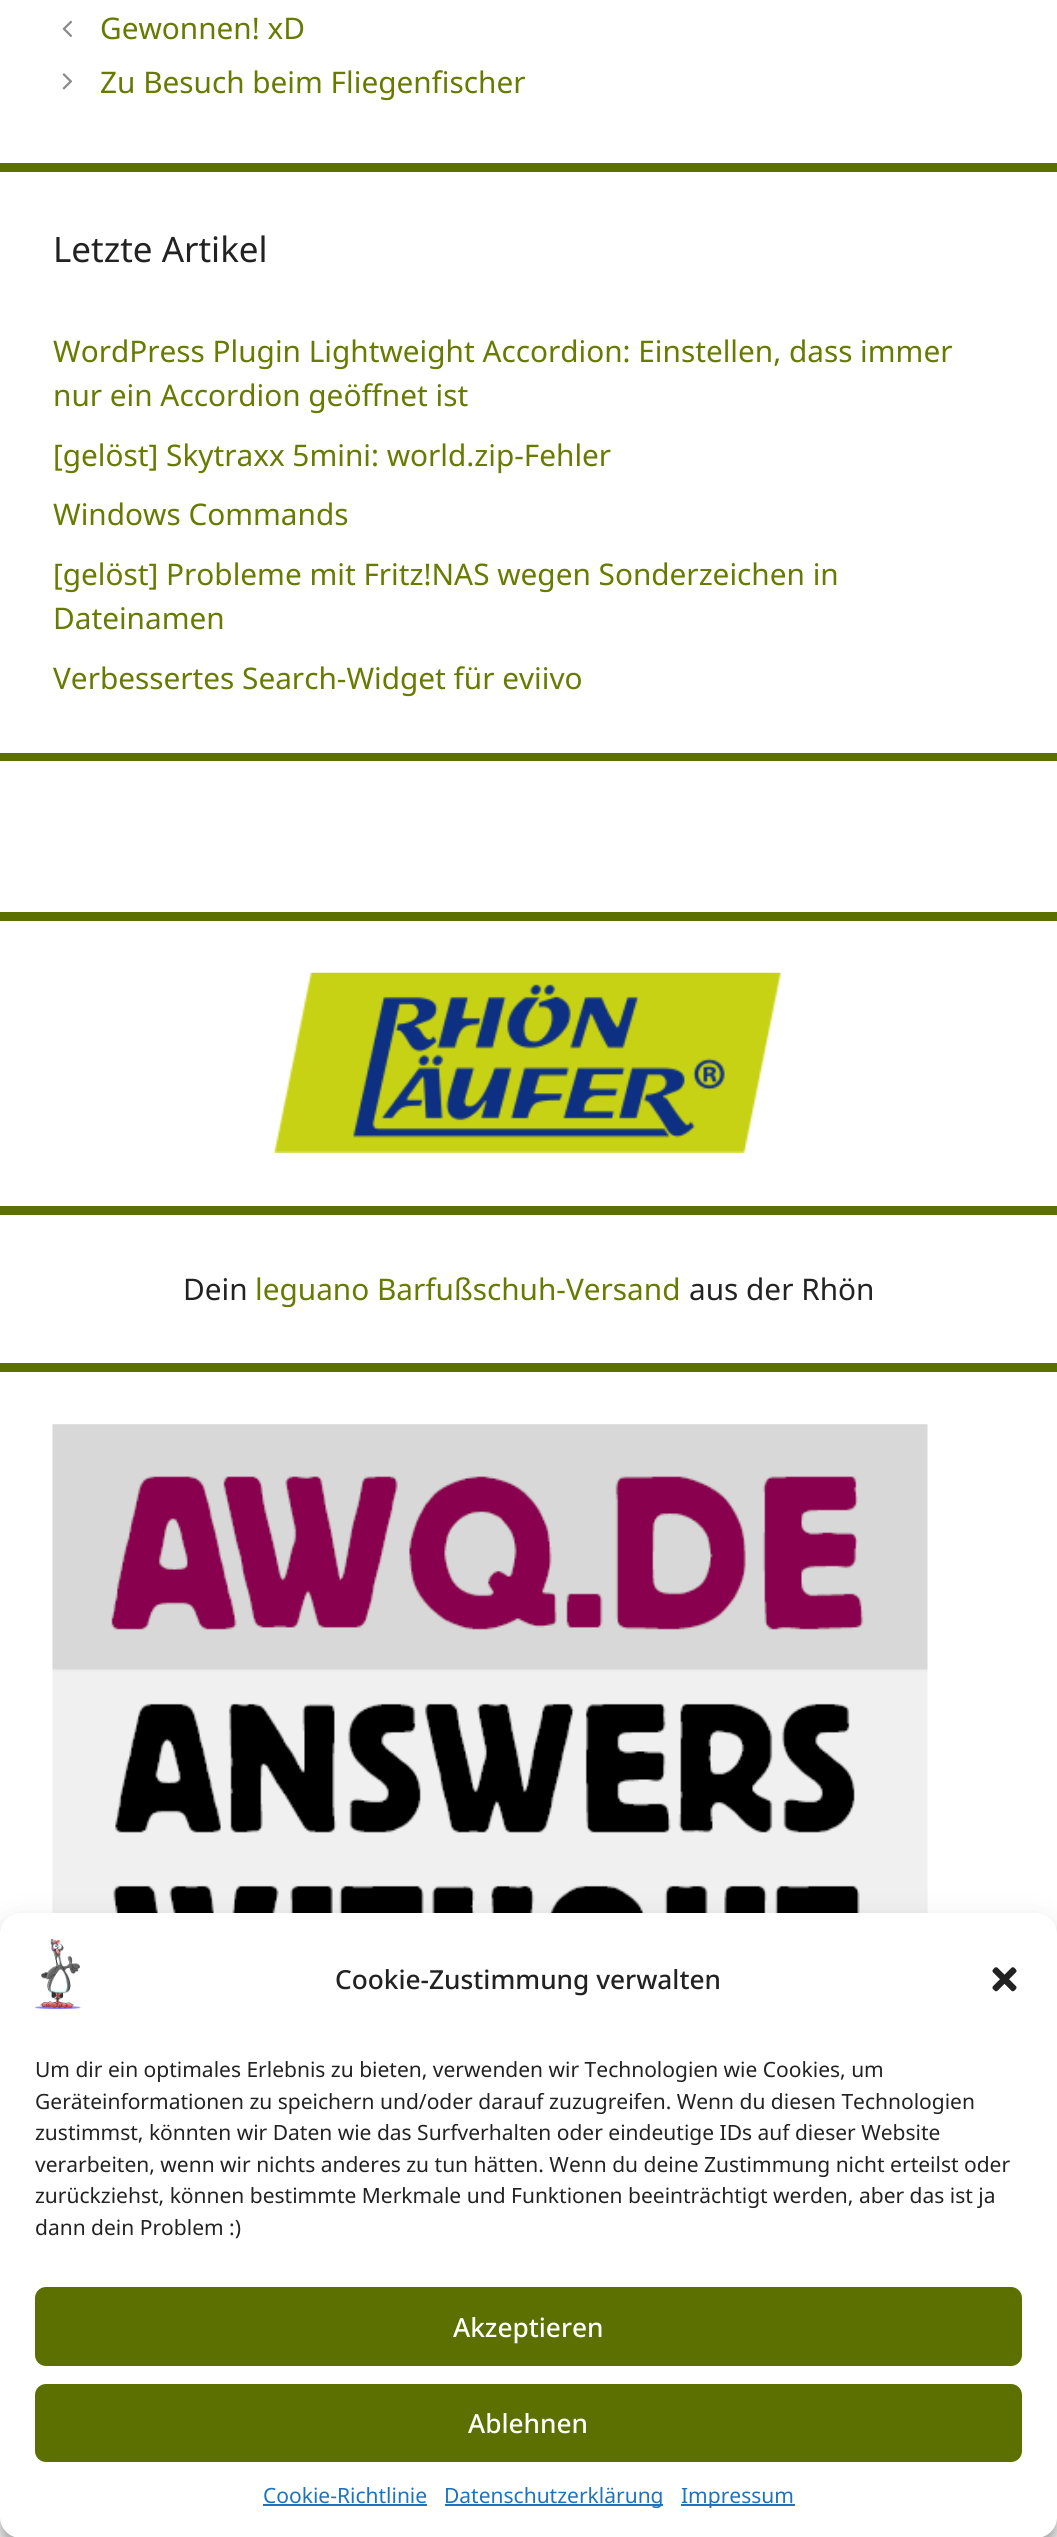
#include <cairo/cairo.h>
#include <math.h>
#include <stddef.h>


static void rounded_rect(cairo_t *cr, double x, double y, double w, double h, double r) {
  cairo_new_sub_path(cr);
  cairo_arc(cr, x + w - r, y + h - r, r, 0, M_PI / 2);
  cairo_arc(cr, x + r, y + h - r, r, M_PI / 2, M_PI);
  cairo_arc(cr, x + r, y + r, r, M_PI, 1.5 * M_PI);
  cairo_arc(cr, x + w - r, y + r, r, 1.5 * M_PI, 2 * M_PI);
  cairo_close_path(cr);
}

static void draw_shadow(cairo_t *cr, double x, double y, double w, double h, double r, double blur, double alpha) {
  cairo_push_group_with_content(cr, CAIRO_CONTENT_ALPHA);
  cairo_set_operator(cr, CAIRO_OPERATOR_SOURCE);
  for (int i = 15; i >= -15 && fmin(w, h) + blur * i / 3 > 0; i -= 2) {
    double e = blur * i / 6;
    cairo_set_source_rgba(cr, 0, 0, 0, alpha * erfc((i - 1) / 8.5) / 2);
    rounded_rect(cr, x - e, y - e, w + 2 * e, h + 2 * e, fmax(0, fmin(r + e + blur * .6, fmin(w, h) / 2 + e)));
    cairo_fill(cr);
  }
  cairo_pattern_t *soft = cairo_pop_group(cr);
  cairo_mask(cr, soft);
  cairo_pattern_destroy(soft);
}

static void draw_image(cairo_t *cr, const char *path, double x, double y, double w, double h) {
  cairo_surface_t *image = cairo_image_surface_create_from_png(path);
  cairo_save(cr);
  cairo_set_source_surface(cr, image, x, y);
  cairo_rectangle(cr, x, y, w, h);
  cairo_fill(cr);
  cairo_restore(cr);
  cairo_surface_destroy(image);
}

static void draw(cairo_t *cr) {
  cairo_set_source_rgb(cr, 91 / 255.0, 112 / 255.0, 0);
  cairo_paint(cr);
  cairo_set_source_rgb(cr, 1, 1, 1);
  cairo_rectangle(cr, 0, 0, 1057, 163);
  cairo_fill(cr);
  draw_image(cr, "images/1.png", 62, 20, 11, 17);
  draw_image(cr, "images/2.png", 62, 73, 11, 17);
  cairo_rectangle(cr, 0, 172, 1057, 581);
  cairo_fill(cr);
  cairo_rectangle(cr, 0, 761, 1057, 151);
  cairo_fill(cr);
  cairo_rectangle(cr, 0, 921, 1057, 285);
  cairo_fill(cr);
  draw_image(cr, "images/3.png", 274, 972, 507, 181);
  cairo_rectangle(cr, 0, 1215, 1057, 148);
  cairo_fill(cr);
  cairo_rectangle(cr, 0, 1372, 1057, 562);
  cairo_fill(cr);
  draw_image(cr, "images/4.png", 52, 1424, 876, 489);
  cairo_rectangle(cr, 0, 2517, 1057, 20);
  cairo_fill(cr);
  cairo_set_source_rgb(cr, 0, 0, 0);
  draw_shadow(cr, 0, 1923, 1057, 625, 21, 5, 0.23);
  draw_shadow(cr, 0, 1930, 1057, 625, 21, 17.5, 0.19);
  cairo_set_source_rgb(cr, 1, 1, 1);
  rounded_rect(cr, 0, 1913, 1057, 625, 21);
  cairo_fill(cr);
  draw_image(cr, "images/5.png", 35, 1939, 46, 70);
  draw_image(cr, "images/6.png", 992, 1967, 25, 25);
  cairo_set_source_rgb(cr, 91 / 255.0, 112 / 255.0, 0);
  rounded_rect(cr, 36, 2288, 985, 77, 10);
  cairo_fill_preserve(cr);
  cairo_stroke(cr);
  rounded_rect(cr, 36, 2385, 985, 76, 10);
  cairo_fill_preserve(cr);
  cairo_stroke(cr);
  cairo_set_source_rgb(cr, 30 / 255.0, 115 / 255.0, 190 / 255.0);
  cairo_rectangle(cr, 263, 2504, 164, 2);
  cairo_fill(cr);
  cairo_rectangle(cr, 445, 2504, 218, 2);
  cairo_fill(cr);
  cairo_rectangle(cr, 681, 2504, 114, 2);
  cairo_fill(cr);
  cairo_select_font_face(cr, "Noto Sans", CAIRO_FONT_SLANT_NORMAL, CAIRO_FONT_WEIGHT_NORMAL);
  cairo_set_font_size(cr, 29.75);
  cairo_set_source_rgb(cr, 104 / 255.0, 122 / 255.0, 0);
  cairo_move_to(cr, 100, 39);
  cairo_show_text(cr, "Gewonnen! xD");
  cairo_move_to(cr, 100, 93);
  cairo_show_text(cr, "Zu Besuch beim Fliegenfischer");
  cairo_set_font_size(cr, 35);
  cairo_set_source_rgb(cr, 34 / 255.0, 34 / 255.0, 34 / 255.0);
  cairo_move_to(cr, 53, 262);
  cairo_show_text(cr, "Letzte Artikel");
  cairo_set_font_size(cr, 29.75);
  cairo_set_source_rgb(cr, 104 / 255.0, 122 / 255.0, 0);
  cairo_move_to(cr, 53, 362);
  cairo_show_text(cr, "WordPress Plugin Lightweight Accordion: Einstellen, dass immer");
  cairo_move_to(cr, 53, 406);
  cairo_show_text(cr, "nur ein Accordion geöffnet ist");
  cairo_move_to(cr, 53, 466);
  cairo_show_text(cr, "[gelöst] Skytraxx 5mini: world.zip-Fehler");
  cairo_move_to(cr, 53, 525);
  cairo_show_text(cr, "Windows Commands");
  cairo_move_to(cr, 53, 585);
  cairo_show_text(cr, "[gelöst] Probleme mit Fritz!NAS wegen Sonderzeichen in");
  cairo_move_to(cr, 53, 629);
  cairo_show_text(cr, "Dateinamen");
  cairo_move_to(cr, 53, 689);
  cairo_show_text(cr, "Verbessertes Search-Widget für eviivo");
  cairo_set_source_rgb(cr, 34 / 255.0, 34 / 255.0, 34 / 255.0);
  cairo_move_to(cr, 183, 1300);
  cairo_show_text(cr, "Dein");
  cairo_set_source_rgb(cr, 104 / 255.0, 122 / 255.0, 0);
  cairo_move_to(cr, 255, 1300);
  cairo_show_text(cr, "leguano Barfußschuh-Versand");
  cairo_set_source_rgb(cr, 34 / 255.0, 34 / 255.0, 34 / 255.0);
  cairo_move_to(cr, 689, 1300);
  cairo_show_text(cr, "aus der Rhön");
  cairo_select_font_face(cr, "Noto Sans Medium", CAIRO_FONT_SLANT_NORMAL, CAIRO_FONT_WEIGHT_NORMAL);
  cairo_set_font_size(cr, 26.25);
  cairo_move_to(cr, 335, 1989);
  cairo_show_text(cr, "Cookie-Zustimmung verwalten");
  cairo_select_font_face(cr, "Noto Sans", CAIRO_FONT_SLANT_NORMAL, CAIRO_FONT_WEIGHT_NORMAL);
  cairo_set_font_size(cr, 21);
  cairo_move_to(cr, 35, 2077);
  cairo_show_text(cr, "Um dir ein optimales Erlebnis zu bieten, verwenden wir Technologien wie Cookies, um");
  cairo_move_to(cr, 35, 2109);
  cairo_show_text(cr, "Geräteinformationen zu speichern und/oder darauf zuzugreifen. Wenn du diesen Technologien");
  cairo_move_to(cr, 35, 2140);
  cairo_show_text(cr, "zustimmst, könnten wir Daten wie das Surfverhalten oder eindeutige IDs auf dieser Website");
  cairo_move_to(cr, 35, 2172);
  cairo_show_text(cr, "verarbeiten, wenn wir nichts anderes zu tun hätten. Wenn du deine Zustimmung nicht erteilst oder");
  cairo_move_to(cr, 35, 2203);
  cairo_show_text(cr, "zurückziehst, können bestimmte Merkmale und Funktionen beeinträchtigt werden, aber das ist ja");
  cairo_move_to(cr, 35, 2235);
  cairo_show_text(cr, "dann dein Problem :)");
  cairo_select_font_face(cr, "Noto Sans Medium", CAIRO_FONT_SLANT_NORMAL, CAIRO_FONT_WEIGHT_NORMAL);
  cairo_set_font_size(cr, 26.25);
  cairo_set_source_rgb(cr, 1, 1, 1);
  cairo_move_to(cr, 453, 2337);
  cairo_show_text(cr, "Akzeptieren");
  cairo_move_to(cr, 468, 2433);
  cairo_show_text(cr, "Ablehnen");
  cairo_select_font_face(cr, "Noto Sans", CAIRO_FONT_SLANT_NORMAL, CAIRO_FONT_WEIGHT_NORMAL);
  cairo_set_font_size(cr, 21);
  cairo_set_source_rgb(cr, 30 / 255.0, 115 / 255.0, 190 / 255.0);
  cairo_move_to(cr, 263, 2503);
  cairo_show_text(cr, "Cookie-Richtlinie");
  cairo_move_to(cr, 444, 2503);
  cairo_show_text(cr, "Datenschutzerklärung");
  cairo_move_to(cr, 681, 2503);
  cairo_show_text(cr, "Impressum");
}

int main(void) {
  cairo_surface_t *surface = cairo_image_surface_create(CAIRO_FORMAT_RGB24, 1057, 2537);
  cairo_t *cr = cairo_create(surface);
  cairo_font_options_t *options = cairo_font_options_create();
  cairo_font_options_set_hint_metrics(options, CAIRO_HINT_METRICS_OFF);
  cairo_font_options_set_hint_style(options, CAIRO_HINT_STYLE_NONE);
  cairo_set_font_options(cr, options);
  cairo_set_miter_limit(cr, 4);
  draw(cr);
  cairo_surface_write_to_png(surface, "out.png");
  cairo_font_options_destroy(options);
  cairo_destroy(cr);
  cairo_surface_destroy(surface);
  return 0;
}
